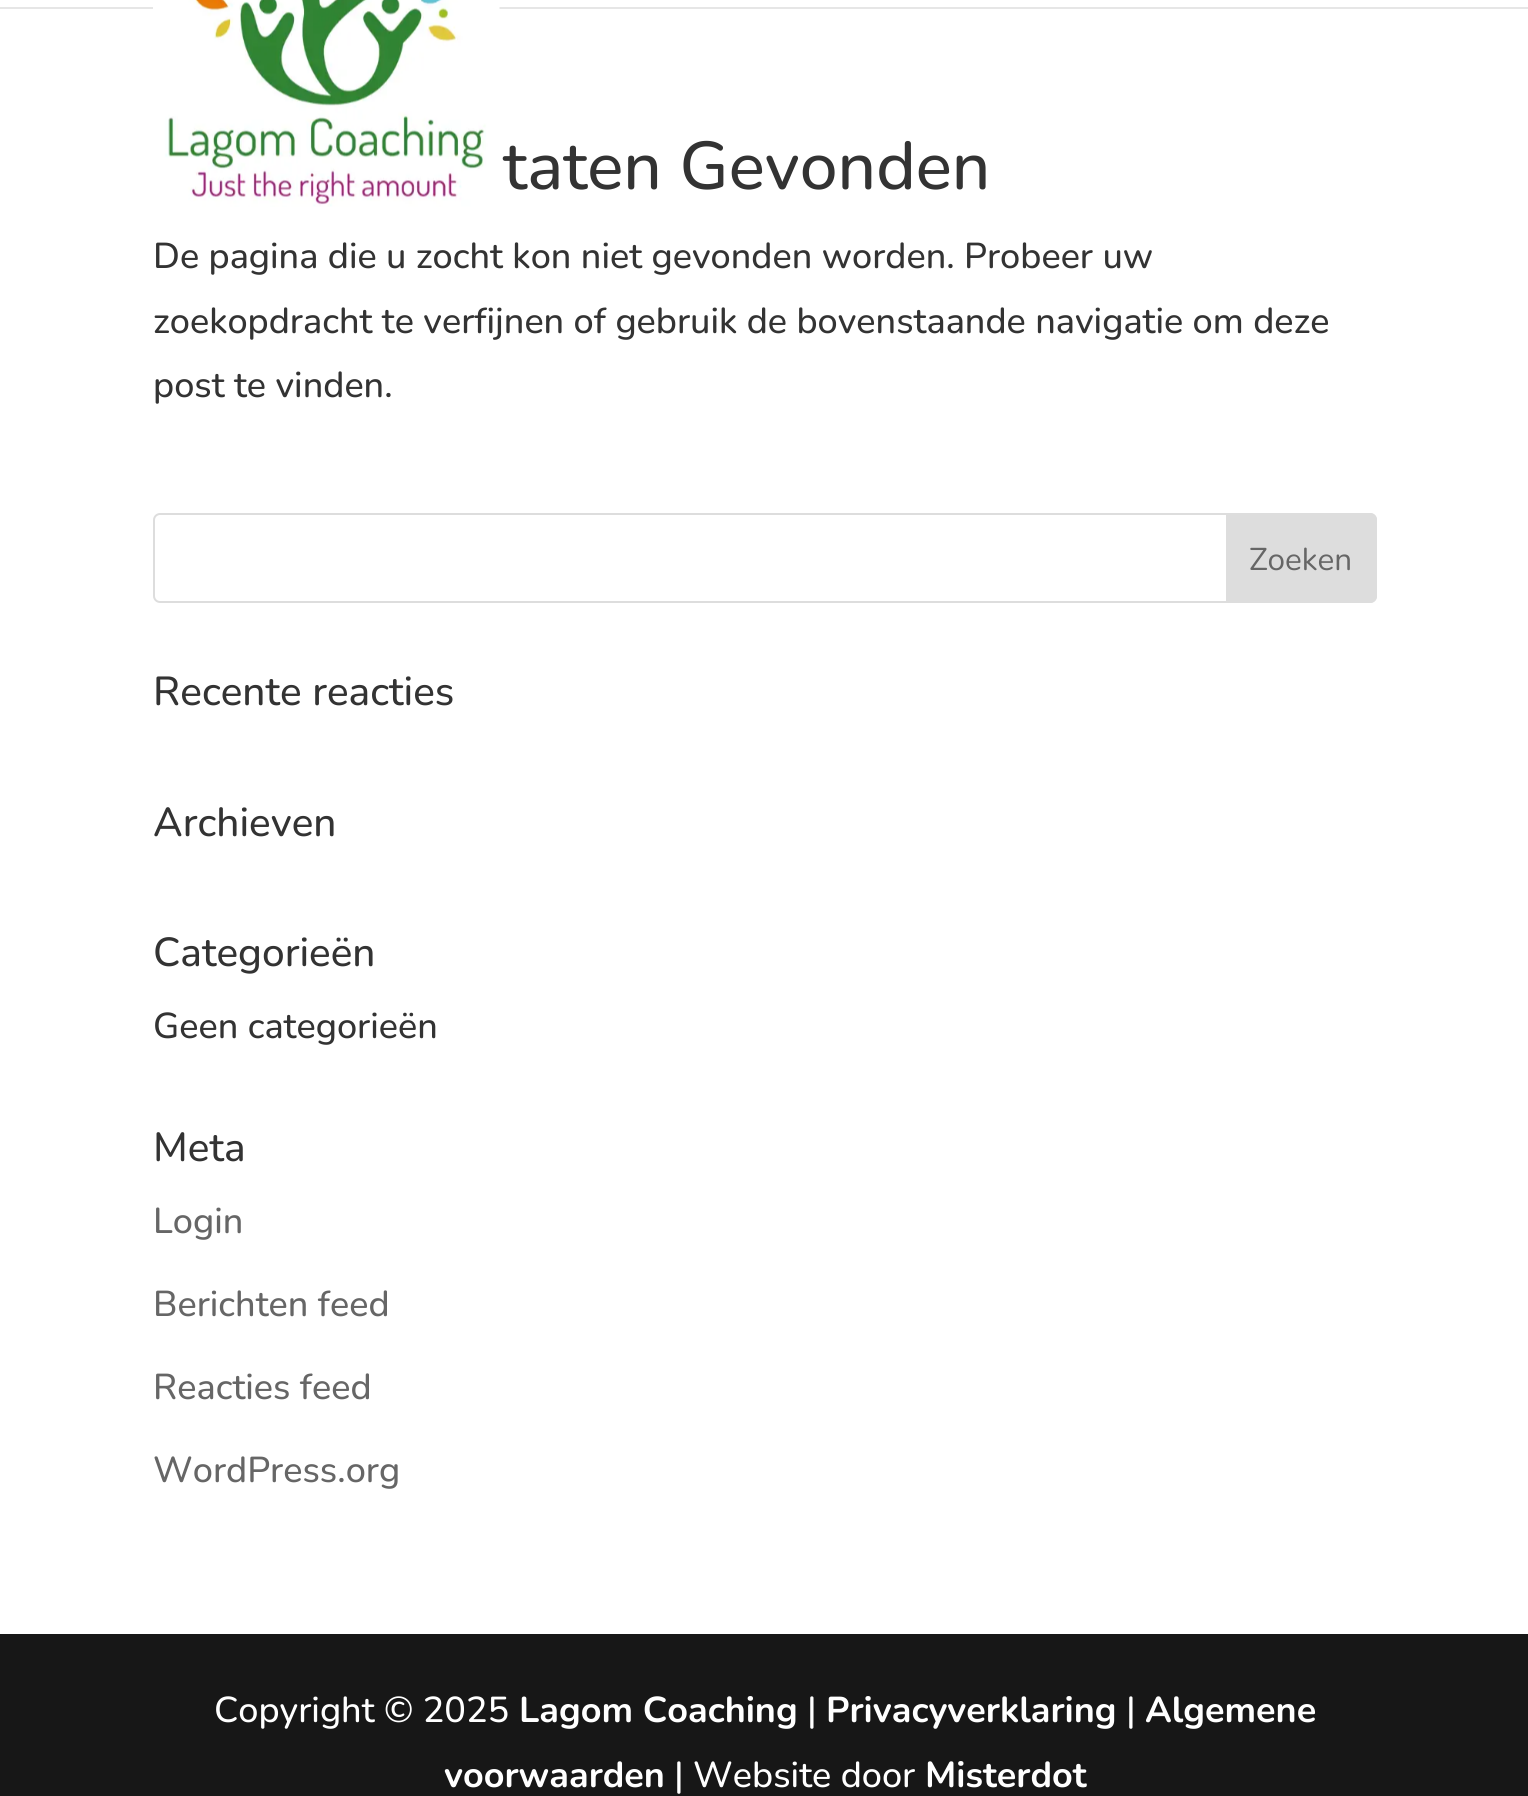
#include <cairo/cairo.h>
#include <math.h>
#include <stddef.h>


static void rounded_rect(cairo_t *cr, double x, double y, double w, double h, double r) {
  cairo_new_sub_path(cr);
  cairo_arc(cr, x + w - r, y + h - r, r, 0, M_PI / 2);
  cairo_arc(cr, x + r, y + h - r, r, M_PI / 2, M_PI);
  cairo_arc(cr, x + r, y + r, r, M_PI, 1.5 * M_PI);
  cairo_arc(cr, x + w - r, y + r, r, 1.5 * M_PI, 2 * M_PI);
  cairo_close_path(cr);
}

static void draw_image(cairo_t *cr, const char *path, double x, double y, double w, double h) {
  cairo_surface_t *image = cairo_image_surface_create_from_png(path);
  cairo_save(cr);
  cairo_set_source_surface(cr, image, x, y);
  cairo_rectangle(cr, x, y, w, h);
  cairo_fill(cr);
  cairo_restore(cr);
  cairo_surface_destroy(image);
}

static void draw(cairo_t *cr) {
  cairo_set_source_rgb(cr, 1, 1, 1);
  cairo_paint(cr);
  cairo_set_source_rgb(cr, 230 / 255.0, 230 / 255.0, 230 / 255.0);
  cairo_rectangle(cr, 0, 7, 1528, 2);
  cairo_fill(cr);
  draw_image(cr, "images/1.png", 153, 0, 347, 207);
  rounded_rect(cr, 154, 514, 1222, 88, 6);
  cairo_set_source_rgb(cr, 221 / 255.0, 221 / 255.0, 221 / 255.0);
  cairo_stroke(cr);
  cairo_new_path(cr);
  cairo_move_to(cr, 1227, 514);
  cairo_line_to(cr, 1370, 514);
  cairo_curve_to(cr, 1373.5, 514, 1376, 516.5, 1376, 520);
  cairo_line_to(cr, 1376, 596);
  cairo_curve_to(cr, 1376, 599.5, 1373.5, 602, 1370, 602);
  cairo_line_to(cr, 1227, 602);
  cairo_close_path(cr);
  cairo_fill_preserve(cr);
  cairo_stroke(cr);
  cairo_set_source_rgb(cr, 23 / 255.0, 23 / 255.0, 23 / 255.0);
  cairo_rectangle(cr, 0, 1634, 1528, 162);
  cairo_fill(cr);
  cairo_select_font_face(cr, "Nunito Medium", CAIRO_FONT_SLANT_NORMAL, CAIRO_FONT_WEIGHT_NORMAL);
  cairo_set_font_size(cr, 67.5);
  cairo_set_source_rgb(cr, 51 / 255.0, 51 / 255.0, 51 / 255.0);
  cairo_move_to(cr, 503, 189);
  cairo_show_text(cr, "taten Gevonden");
  cairo_set_font_size(cr, 36);
  cairo_move_to(cr, 153, 268);
  cairo_show_text(cr, "De pagina die u zocht kon niet gevonden worden. Probeer uw");
  cairo_move_to(cr, 153, 333);
  cairo_show_text(cr, "zoekopdracht te verfijnen of gebruik de bovenstaande navigatie om deze");
  cairo_move_to(cr, 153, 397);
  cairo_show_text(cr, "post te vinden.");
  cairo_select_font_face(cr, "Nunito", CAIRO_FONT_SLANT_NORMAL, CAIRO_FONT_WEIGHT_NORMAL);
  cairo_set_font_size(cr, 31.5);
  cairo_set_source_rgb(cr, 102 / 255.0, 102 / 255.0, 102 / 255.0);
  cairo_move_to(cr, 1249, 570);
  cairo_show_text(cr, "Zoeken");
  cairo_select_font_face(cr, "Nunito Medium", CAIRO_FONT_SLANT_NORMAL, CAIRO_FONT_WEIGHT_NORMAL);
  cairo_set_font_size(cr, 40.5);
  cairo_set_source_rgb(cr, 51 / 255.0, 51 / 255.0, 51 / 255.0);
  cairo_move_to(cr, 153, 705);
  cairo_show_text(cr, "Recente reacties");
  cairo_move_to(cr, 153, 836);
  cairo_show_text(cr, "Archieven");
  cairo_move_to(cr, 153, 966);
  cairo_show_text(cr, "Categorieën");
  cairo_set_font_size(cr, 36);
  cairo_move_to(cr, 153, 1038);
  cairo_show_text(cr, "Geen categorieën");
  cairo_set_font_size(cr, 40.5);
  cairo_move_to(cr, 153, 1161);
  cairo_show_text(cr, "Meta");
  cairo_set_font_size(cr, 36);
  cairo_set_source_rgb(cr, 102 / 255.0, 102 / 255.0, 102 / 255.0);
  cairo_move_to(cr, 153, 1233);
  cairo_show_text(cr, "Login");
  cairo_move_to(cr, 153, 1316);
  cairo_show_text(cr, "Berichten feed");
  cairo_move_to(cr, 153, 1399);
  cairo_show_text(cr, "Reacties feed");
  cairo_move_to(cr, 153, 1482);
  cairo_show_text(cr, "WordPress.org");
  cairo_set_source_rgb(cr, 1, 1, 1);
  cairo_move_to(cr, 214, 1722);
  cairo_show_text(cr, "Copyright © 2025");
  cairo_select_font_face(cr, "Nunito", CAIRO_FONT_SLANT_NORMAL, CAIRO_FONT_WEIGHT_BOLD);
  cairo_move_to(cr, 519, 1722);
  cairo_show_text(cr, "Lagom Coaching");
  cairo_select_font_face(cr, "Nunito Medium", CAIRO_FONT_SLANT_NORMAL, CAIRO_FONT_WEIGHT_NORMAL);
  cairo_move_to(cr, 807, 1722);
  cairo_show_text(cr, "|");
  cairo_select_font_face(cr, "Nunito", CAIRO_FONT_SLANT_NORMAL, CAIRO_FONT_WEIGHT_BOLD);
  cairo_move_to(cr, 826, 1722);
  cairo_show_text(cr, "Privacyverklaring");
  cairo_select_font_face(cr, "Nunito Medium", CAIRO_FONT_SLANT_NORMAL, CAIRO_FONT_WEIGHT_NORMAL);
  cairo_move_to(cr, 1126, 1722);
  cairo_show_text(cr, "|");
  cairo_select_font_face(cr, "Nunito", CAIRO_FONT_SLANT_NORMAL, CAIRO_FONT_WEIGHT_BOLD);
  cairo_move_to(cr, 1145, 1722);
  cairo_show_text(cr, "Algemene");
  cairo_move_to(cr, 444, 1787);
  cairo_show_text(cr, "voorwaarden");
  cairo_select_font_face(cr, "Nunito Medium", CAIRO_FONT_SLANT_NORMAL, CAIRO_FONT_WEIGHT_NORMAL);
  cairo_move_to(cr, 674, 1787);
  cairo_show_text(cr, "| Website door");
  cairo_select_font_face(cr, "Nunito", CAIRO_FONT_SLANT_NORMAL, CAIRO_FONT_WEIGHT_BOLD);
  cairo_move_to(cr, 925, 1787);
  cairo_show_text(cr, "Misterdot");
}

int main(void) {
  cairo_surface_t *surface = cairo_image_surface_create(CAIRO_FORMAT_RGB24, 1528, 1796);
  cairo_t *cr = cairo_create(surface);
  cairo_font_options_t *options = cairo_font_options_create();
  cairo_font_options_set_hint_metrics(options, CAIRO_HINT_METRICS_OFF);
  cairo_font_options_set_hint_style(options, CAIRO_HINT_STYLE_NONE);
  cairo_set_font_options(cr, options);
  cairo_set_miter_limit(cr, 4);
  draw(cr);
  cairo_surface_write_to_png(surface, "out.png");
  cairo_font_options_destroy(options);
  cairo_destroy(cr);
  cairo_surface_destroy(surface);
  return 0;
}
